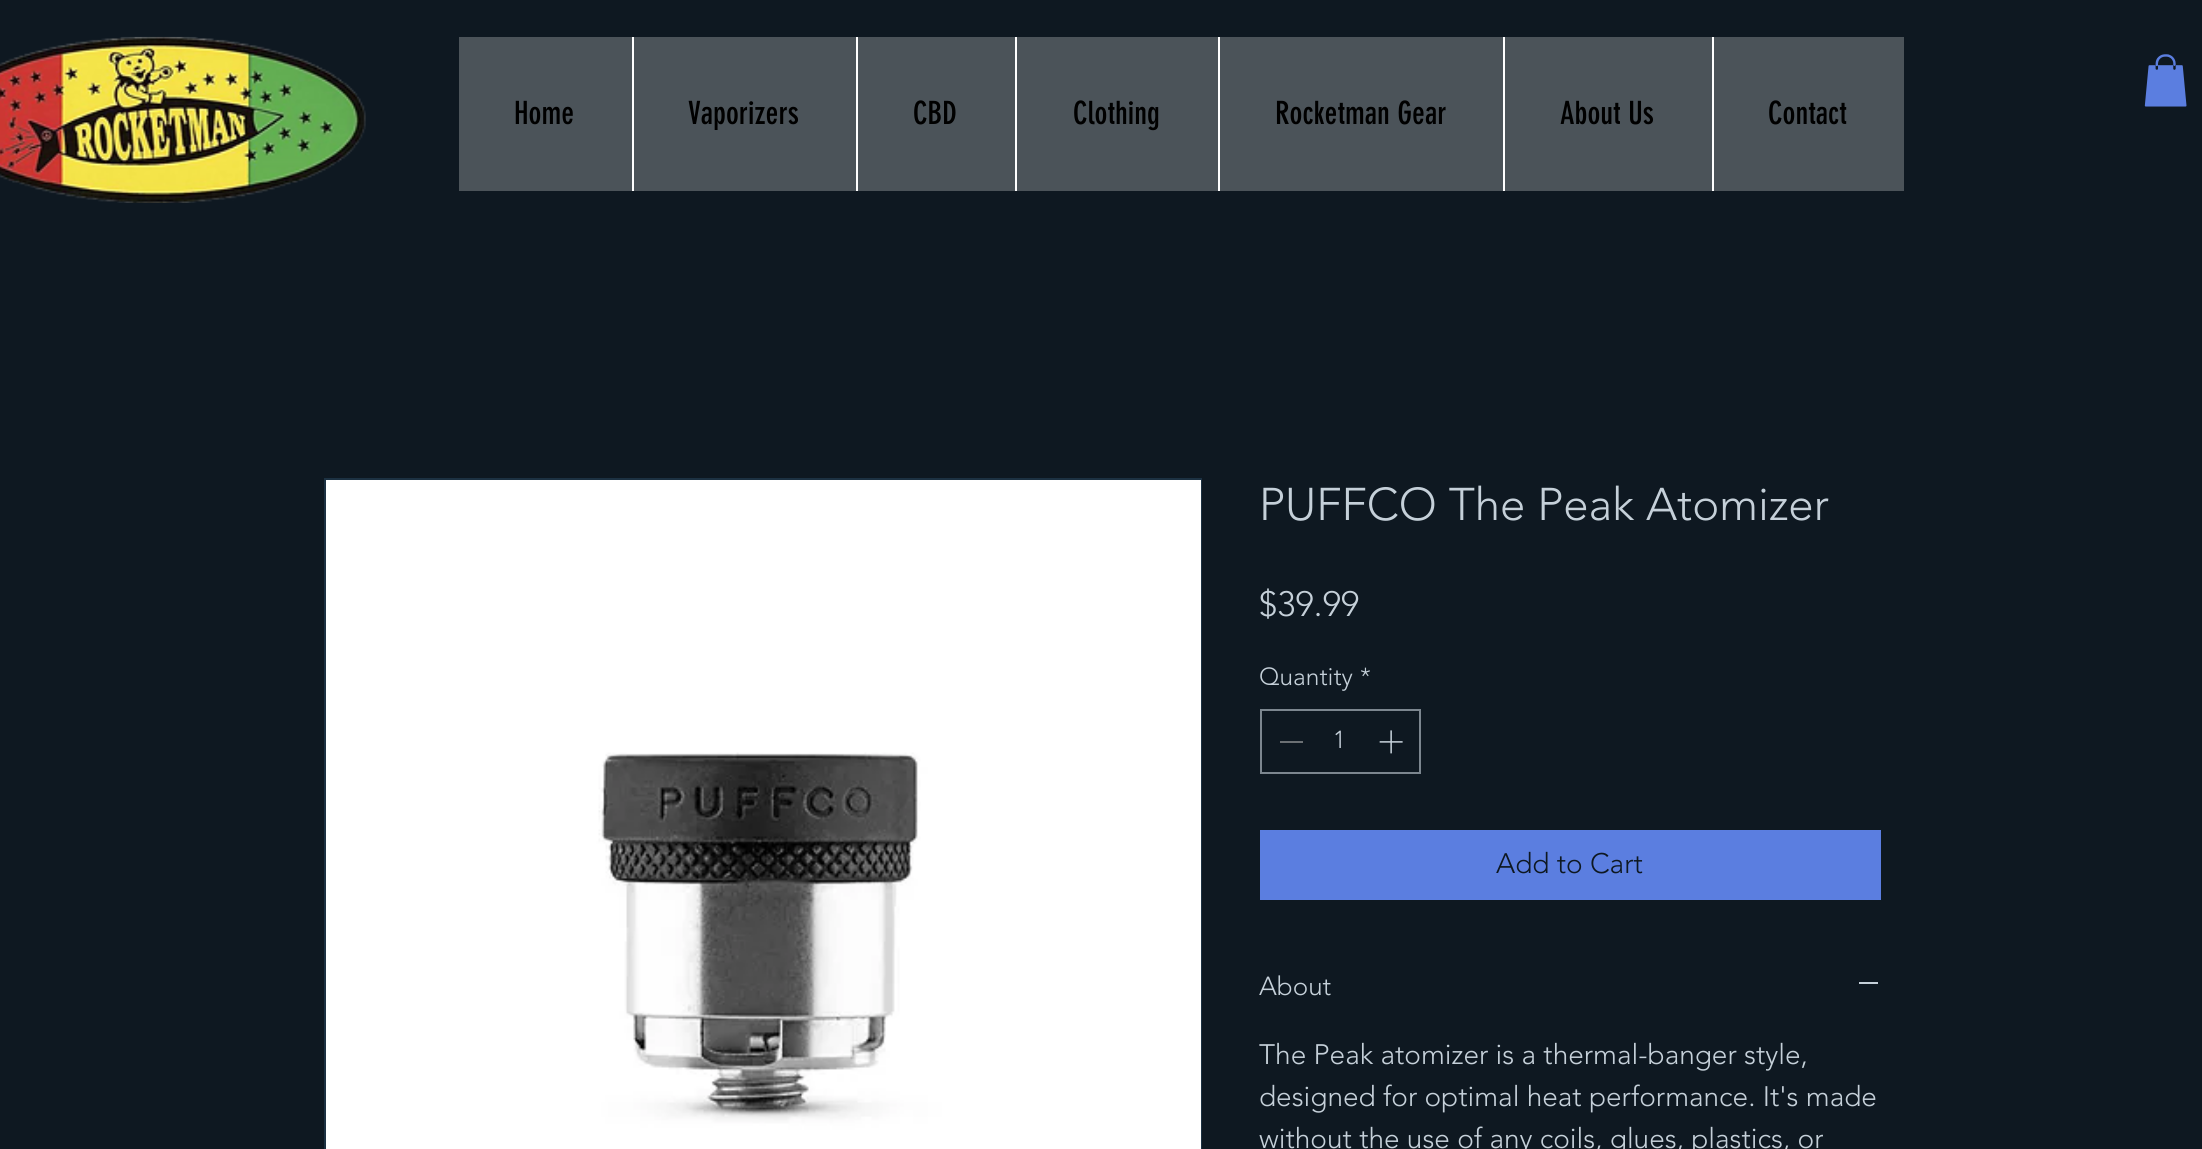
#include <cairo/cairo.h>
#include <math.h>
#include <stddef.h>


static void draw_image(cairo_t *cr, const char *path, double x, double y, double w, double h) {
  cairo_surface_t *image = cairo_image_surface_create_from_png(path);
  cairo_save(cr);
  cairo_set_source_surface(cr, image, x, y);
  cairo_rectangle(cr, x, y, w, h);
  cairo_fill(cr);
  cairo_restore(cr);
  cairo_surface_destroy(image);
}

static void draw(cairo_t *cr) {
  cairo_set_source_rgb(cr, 14 / 255.0, 24 / 255.0, 33 / 255.0);
  cairo_paint(cr);
  draw_image(cr, "images/1.png", 0, 36, 366, 167);
  draw_image(cr, "images/2.png", 2144, 54, 43, 53);
  cairo_set_source_rgb(cr, 75 / 255.0, 83 / 255.0, 89 / 255.0);
  cairo_rectangle(cr, 459, 37, 1445, 154);
  cairo_fill(cr);
  cairo_set_source_rgb(cr, 1, 1, 1);
  cairo_rectangle(cr, 632, 37, 2, 154);
  cairo_fill(cr);
  cairo_rectangle(cr, 856, 37, 2, 154);
  cairo_fill(cr);
  cairo_rectangle(cr, 1015, 37, 2, 154);
  cairo_fill(cr);
  cairo_rectangle(cr, 1218, 37, 2, 154);
  cairo_fill(cr);
  cairo_rectangle(cr, 1503, 37, 2, 154);
  cairo_fill(cr);
  cairo_rectangle(cr, 1712, 37, 2, 154);
  cairo_fill(cr);
  cairo_rectangle(cr, 325, 479, 876, 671);
  cairo_set_source_rgb(cr, 28 / 255.0, 49 / 255.0, 66 / 255.0);
  cairo_stroke(cr);
  draw_image(cr, "images/3.png", 326, 480, 875, 669);
  cairo_rectangle(cr, 1261, 710, 159, 63);
  cairo_set_source_rgb(cr, 124 / 255.0, 134 / 255.0, 143 / 255.0);
  cairo_stroke(cr);
  cairo_set_source_rgb(cr, 107 / 255.0, 112 / 255.0, 116 / 255.0);
  cairo_rectangle(cr, 1280, 741, 23, 2);
  cairo_fill(cr);
  draw_image(cr, "images/4.png", 1379, 730, 24, 24);
  cairo_set_source_rgb(cr, 91 / 255.0, 126 / 255.0, 224 / 255.0);
  cairo_rectangle(cr, 1260, 830, 621, 70);
  cairo_fill(cr);
  cairo_set_source_rgb(cr, 197 / 255.0, 208 / 255.0, 217 / 255.0);
  cairo_rectangle(cr, 1859, 982, 19, 2);
  cairo_fill(cr);
  cairo_select_font_face(cr, "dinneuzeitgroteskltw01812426", CAIRO_FONT_SLANT_NORMAL, CAIRO_FONT_WEIGHT_NORMAL);
  cairo_set_font_size(cr, 31.5);
  cairo_set_source_rgb(cr, 0, 0, 0);
  cairo_move_to(cr, 514, 124);
  cairo_show_text(cr, "Home");
  cairo_move_to(cr, 688, 124);
  cairo_show_text(cr, "Vaporizers");
  cairo_move_to(cr, 913, 124);
  cairo_show_text(cr, "CBD");
  cairo_move_to(cr, 1073, 124);
  cairo_show_text(cr, "Clothing");
  cairo_move_to(cr, 1275, 124);
  cairo_show_text(cr, "Rocketman Gear");
  cairo_move_to(cr, 1560, 124);
  cairo_show_text(cr, "About Us");
  cairo_move_to(cr, 1768, 124);
  cairo_show_text(cr, "Contact");
  cairo_select_font_face(cr, "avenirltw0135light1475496 Light", CAIRO_FONT_SLANT_NORMAL, CAIRO_FONT_WEIGHT_NORMAL);
  cairo_set_font_size(cr, 45.5);
  cairo_set_source_rgb(cr, 197 / 255.0, 208 / 255.0, 217 / 255.0);
  cairo_move_to(cr, 1259, 520);
  cairo_show_text(cr, "PUFFCO The Peak Atomizer");
  cairo_set_font_size(cr, 35);
  cairo_move_to(cr, 1259, 616);
  cairo_show_text(cr, "$39.99");
  cairo_set_font_size(cr, 24.5);
  cairo_move_to(cr, 1259, 685);
  cairo_show_text(cr, "Quantity");
  cairo_move_to(cr, 1360, 685);
  cairo_show_text(cr, "*");
  cairo_move_to(cr, 1333, 748);
  cairo_show_text(cr, "1");
  cairo_set_font_size(cr, 28);
  cairo_set_source_rgb(cr, 14 / 255.0, 24 / 255.0, 33 / 255.0);
  cairo_move_to(cr, 1496, 873);
  cairo_show_text(cr, "Add to Cart");
  cairo_set_font_size(cr, 26);
  cairo_set_source_rgb(cr, 197 / 255.0, 208 / 255.0, 217 / 255.0);
  cairo_move_to(cr, 1259, 995);
  cairo_show_text(cr, "About");
  cairo_set_font_size(cr, 28);
  cairo_move_to(cr, 1259, 1064);
  cairo_show_text(cr, "The Peak atomizer is a thermal-banger style,");
  cairo_move_to(cr, 1259, 1106);
  cairo_show_text(cr, "designed for optimal heat performance. It's made");
  cairo_move_to(cr, 1259, 1148);
  cairo_show_text(cr, "without the use of any coils, glues, plastics, or");
}

int main(void) {
  cairo_surface_t *surface = cairo_image_surface_create(CAIRO_FORMAT_RGB24, 2202, 1149);
  cairo_t *cr = cairo_create(surface);
  cairo_font_options_t *options = cairo_font_options_create();
  cairo_font_options_set_hint_metrics(options, CAIRO_HINT_METRICS_OFF);
  cairo_font_options_set_hint_style(options, CAIRO_HINT_STYLE_NONE);
  cairo_set_font_options(cr, options);
  cairo_set_miter_limit(cr, 4);
  draw(cr);
  cairo_surface_write_to_png(surface, "out.png");
  cairo_font_options_destroy(options);
  cairo_destroy(cr);
  cairo_surface_destroy(surface);
  return 0;
}
